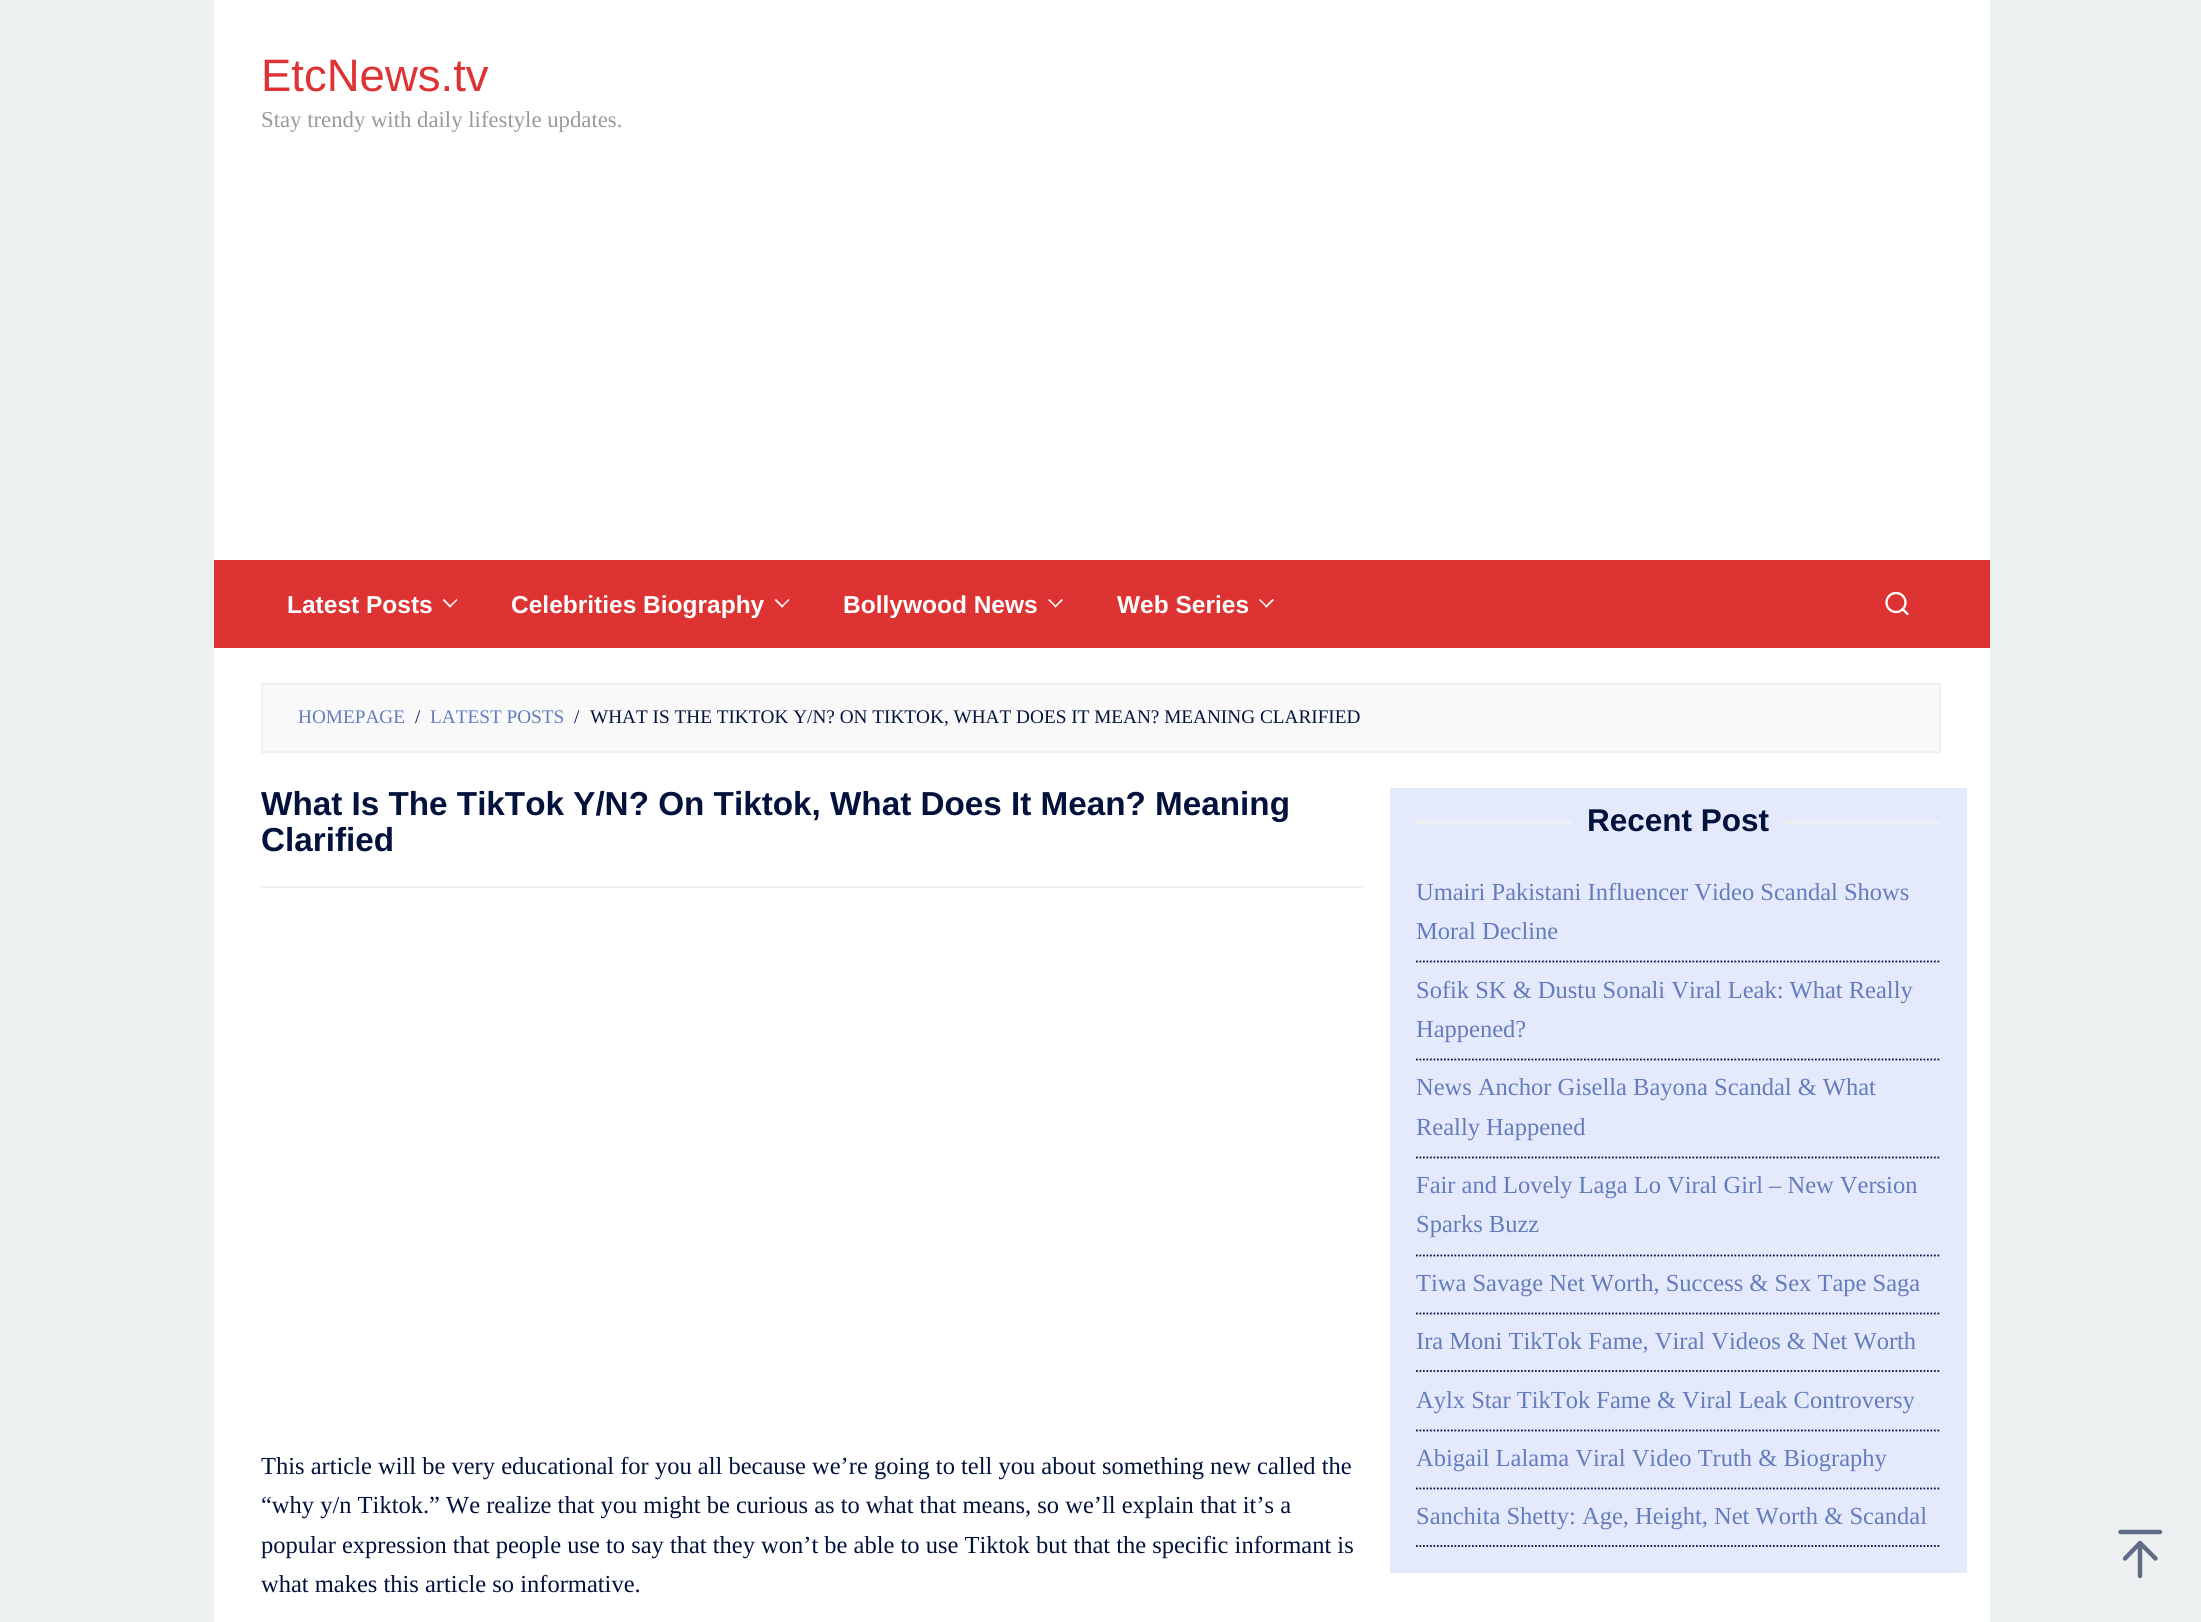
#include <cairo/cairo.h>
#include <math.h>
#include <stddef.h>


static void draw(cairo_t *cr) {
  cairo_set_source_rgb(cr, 236 / 255.0, 240 / 255.0, 241 / 255.0);
  cairo_paint(cr);
  cairo_set_source_rgb(cr, 1, 1, 1);
  cairo_rectangle(cr, 214, 0, 1776, 560);
  cairo_fill(cr);
  cairo_set_source_rgb(cr, 221 / 255.0, 51 / 255.0, 51 / 255.0);
  cairo_rectangle(cr, 214, 560, 1776, 88);
  cairo_fill(cr);
  cairo_set_source_rgb(cr, 1, 1, 1);
  cairo_new_path(cr);
  cairo_move_to(cr, 456.5, 599);
  cairo_line_to(cr, 457.5, 600);
  cairo_line_to(cr, 450, 607.5);
  cairo_line_to(cr, 449, 606.5);
  cairo_close_path(cr);
  cairo_fill(cr);
  cairo_new_path(cr);
  cairo_move_to(cr, 444, 599);
  cairo_line_to(cr, 451.5, 606.5);
  cairo_line_to(cr, 450, 607.5);
  cairo_line_to(cr, 442.5, 600);
  cairo_close_path(cr);
  cairo_fill(cr);
  cairo_new_path(cr);
  cairo_move_to(cr, 788.5, 599);
  cairo_line_to(cr, 789.5, 600);
  cairo_line_to(cr, 782, 607.5);
  cairo_line_to(cr, 781, 606.5);
  cairo_close_path(cr);
  cairo_fill(cr);
  cairo_new_path(cr);
  cairo_move_to(cr, 776, 599);
  cairo_line_to(cr, 783.5, 606.5);
  cairo_line_to(cr, 782, 607.5);
  cairo_line_to(cr, 774.5, 600);
  cairo_close_path(cr);
  cairo_fill(cr);
  cairo_new_path(cr);
  cairo_move_to(cr, 1061.5, 599);
  cairo_line_to(cr, 1063, 600);
  cairo_line_to(cr, 1055.5, 607.5);
  cairo_line_to(cr, 1054.5, 606.5);
  cairo_close_path(cr);
  cairo_fill(cr);
  cairo_new_path(cr);
  cairo_move_to(cr, 1049.5, 599);
  cairo_line_to(cr, 1056.5, 606.5);
  cairo_line_to(cr, 1055.5, 607.5);
  cairo_line_to(cr, 1048, 600);
  cairo_close_path(cr);
  cairo_fill(cr);
  cairo_new_path(cr);
  cairo_move_to(cr, 1272.5, 599);
  cairo_line_to(cr, 1274, 600);
  cairo_line_to(cr, 1266.5, 607.5);
  cairo_line_to(cr, 1265, 606.5);
  cairo_close_path(cr);
  cairo_fill(cr);
  cairo_new_path(cr);
  cairo_move_to(cr, 1260, 599);
  cairo_line_to(cr, 1267.5, 606.5);
  cairo_line_to(cr, 1266.5, 607.5);
  cairo_line_to(cr, 1259, 600);
  cairo_close_path(cr);
  cairo_fill(cr);
  cairo_arc(cr, 1896, 602.5, 9.5, 0, 2 * M_PI);
  cairo_set_line_width(cr, 2.3);
  cairo_stroke(cr);
  cairo_new_path(cr);
  cairo_move_to(cr, 1907.5, 614);
  cairo_line_to(cr, 1902.5, 609);
  cairo_set_line_cap(cr, CAIRO_LINE_CAP_ROUND);
  cairo_set_line_join(cr, CAIRO_LINE_JOIN_ROUND);
  cairo_stroke(cr);
  cairo_rectangle(cr, 214, 648, 1776, 974);
  cairo_fill(cr);
  cairo_set_source_rgb(cr, 249 / 255.0, 249 / 255.0, 249 / 255.0);
  cairo_rectangle(cr, 262, 684, 1678, 68);
  cairo_fill_preserve(cr);
  cairo_set_source_rgb(cr, 236 / 255.0, 240 / 255.0, 241 / 255.0);
  cairo_set_line_width(cr, 2);
  cairo_set_line_cap(cr, CAIRO_LINE_CAP_BUTT);
  cairo_set_line_join(cr, CAIRO_LINE_JOIN_MITER);
  cairo_stroke(cr);
  cairo_rectangle(cr, 261, 886, 1102, 2);
  cairo_fill(cr);
  cairo_set_source_rgb(cr, 228 / 255.0, 234 / 255.0, 251 / 255.0);
  cairo_rectangle(cr, 1390, 788, 577, 785);
  cairo_fill(cr);
  cairo_set_source_rgb(cr, 236 / 255.0, 240 / 255.0, 241 / 255.0);
  cairo_rectangle(cr, 1416, 821, 156, 4);
  cairo_fill(cr);
  cairo_rectangle(cr, 1785, 821, 156, 4);
  cairo_fill(cr);
  cairo_new_path(cr);
  cairo_move_to(cr, 1416, 961.5);
  cairo_line_to(cr, 1941, 961.5);
  cairo_set_source_rgb(cr, 3 / 255.0, 18 / 255.0, 61 / 255.0);
  cairo_set_line_width(cr, 1.8);
  cairo_set_dash(cr, (double[]){1.75, 1.75}, 2, 0);
  cairo_stroke(cr);
  cairo_new_path(cr);
  cairo_move_to(cr, 1416, 1059.5);
  cairo_line_to(cr, 1941, 1059.5);
  cairo_stroke(cr);
  cairo_new_path(cr);
  cairo_move_to(cr, 1416, 1157.5);
  cairo_line_to(cr, 1941, 1157.5);
  cairo_stroke(cr);
  cairo_new_path(cr);
  cairo_move_to(cr, 1416, 1255.5);
  cairo_line_to(cr, 1941, 1255.5);
  cairo_stroke(cr);
  cairo_new_path(cr);
  cairo_move_to(cr, 1416, 1313.5);
  cairo_line_to(cr, 1941, 1313.5);
  cairo_stroke(cr);
  cairo_new_path(cr);
  cairo_move_to(cr, 1416, 1371);
  cairo_line_to(cr, 1941, 1371);
  cairo_stroke(cr);
  cairo_new_path(cr);
  cairo_move_to(cr, 1416, 1430.5);
  cairo_line_to(cr, 1941, 1430.5);
  cairo_stroke(cr);
  cairo_new_path(cr);
  cairo_move_to(cr, 1416, 1488.5);
  cairo_line_to(cr, 1941, 1488.5);
  cairo_stroke(cr);
  cairo_new_path(cr);
  cairo_move_to(cr, 1416, 1546);
  cairo_line_to(cr, 1941, 1546);
  cairo_stroke(cr);
  cairo_new_path(cr);
  cairo_move_to(cr, 2140, 1576);
  cairo_line_to(cr, 2140, 1543);
  cairo_move_to(cr, 2125, 1558.5);
  cairo_line_to(cr, 2140, 1543);
  cairo_line_to(cr, 2155.5, 1558.5);
  cairo_move_to(cr, 2120.5, 1532);
  cairo_line_to(cr, 2160, 1532);
  cairo_set_source_rgb(cr, 96 / 255.0, 107 / 255.0, 133 / 255.0);
  cairo_set_line_width(cr, 4.4);
  cairo_set_line_cap(cr, CAIRO_LINE_CAP_ROUND);
  cairo_set_line_join(cr, CAIRO_LINE_JOIN_ROUND);
  cairo_set_dash(cr, NULL, 0, 0);
  cairo_stroke(cr);
  cairo_select_font_face(cr, "Liberation Sans", CAIRO_FONT_SLANT_NORMAL, CAIRO_FONT_WEIGHT_NORMAL);
  cairo_set_font_size(cr, 45.5);
  cairo_set_source_rgb(cr, 221 / 255.0, 51 / 255.0, 51 / 255.0);
  cairo_move_to(cr, 261, 91);
  cairo_show_text(cr, "EtcNews.tv");
  cairo_select_font_face(cr, "Liberation Serif", CAIRO_FONT_SLANT_NORMAL, CAIRO_FONT_WEIGHT_NORMAL);
  cairo_set_font_size(cr, 22.75);
  cairo_set_source_rgb(cr, 153 / 255.0, 153 / 255.0, 153 / 255.0);
  cairo_move_to(cr, 261, 127);
  cairo_show_text(cr, "Stay trendy with daily lifestyle updates.");
  cairo_select_font_face(cr, "Liberation Sans", CAIRO_FONT_SLANT_NORMAL, CAIRO_FONT_WEIGHT_BOLD);
  cairo_set_font_size(cr, 24.5);
  cairo_set_source_rgb(cr, 1, 1, 1);
  cairo_move_to(cr, 287, 613);
  cairo_show_text(cr, "Latest Posts");
  cairo_move_to(cr, 511, 613);
  cairo_show_text(cr, "Celebrities Biography");
  cairo_move_to(cr, 843, 613);
  cairo_show_text(cr, "Bollywood News");
  cairo_move_to(cr, 1117, 613);
  cairo_show_text(cr, "Web Series");
  cairo_select_font_face(cr, "Liberation Serif", CAIRO_FONT_SLANT_NORMAL, CAIRO_FONT_WEIGHT_NORMAL);
  cairo_set_font_size(cr, 19.25);
  cairo_set_source_rgb(cr, 100 / 255.0, 124 / 255.0, 189 / 255.0);
  cairo_move_to(cr, 298, 723);
  cairo_show_text(cr, "HOMEPAGE");
  cairo_set_source_rgb(cr, 3 / 255.0, 18 / 255.0, 61 / 255.0);
  cairo_move_to(cr, 415, 723);
  cairo_show_text(cr, "/");
  cairo_set_source_rgb(cr, 100 / 255.0, 124 / 255.0, 189 / 255.0);
  cairo_move_to(cr, 430, 723);
  cairo_show_text(cr, "LATEST POSTS");
  cairo_set_source_rgb(cr, 3 / 255.0, 18 / 255.0, 61 / 255.0);
  cairo_move_to(cr, 574, 723);
  cairo_show_text(cr, "/");
  cairo_move_to(cr, 590, 723);
  cairo_show_text(cr, "WHAT IS THE TIKTOK Y/N? ON TIKTOK, WHAT DOES IT MEAN? MEANING CLARIFIED");
  cairo_select_font_face(cr, "Liberation Sans", CAIRO_FONT_SLANT_NORMAL, CAIRO_FONT_WEIGHT_BOLD);
  cairo_set_font_size(cr, 33.25);
  cairo_move_to(cr, 261, 815);
  cairo_show_text(cr, "What Is The TikTok Y/N? On Tiktok, What Does It Mean? Meaning");
  cairo_move_to(cr, 261, 851);
  cairo_show_text(cr, "Clarified");
  cairo_select_font_face(cr, "Liberation Serif", CAIRO_FONT_SLANT_NORMAL, CAIRO_FONT_WEIGHT_NORMAL);
  cairo_set_font_size(cr, 24.5);
  cairo_move_to(cr, 261, 1474);
  cairo_show_text(cr, "This article will be very educational for you all because we’re going to tell you about something new called the");
  cairo_move_to(cr, 261, 1513);
  cairo_show_text(cr, "“why y/n Tiktok.” We realize that you might be curious as to what that means, so we’ll explain that it’s a");
  cairo_move_to(cr, 261, 1553);
  cairo_show_text(cr, "popular expression that people use to say that they won’t be able to use Tiktok but that the specific informant is");
  cairo_move_to(cr, 261, 1592);
  cairo_show_text(cr, "what makes this article so informative.");
  cairo_select_font_face(cr, "Liberation Sans", CAIRO_FONT_SLANT_NORMAL, CAIRO_FONT_WEIGHT_BOLD);
  cairo_set_font_size(cr, 31.5);
  cairo_move_to(cr, 1587, 831);
  cairo_show_text(cr, "Recent Post");
  cairo_select_font_face(cr, "Liberation Serif", CAIRO_FONT_SLANT_NORMAL, CAIRO_FONT_WEIGHT_NORMAL);
  cairo_set_font_size(cr, 24.5);
  cairo_set_source_rgb(cr, 100 / 255.0, 124 / 255.0, 189 / 255.0);
  cairo_move_to(cr, 1416, 900);
  cairo_show_text(cr, "Umairi Pakistani Influencer Video Scandal Shows");
  cairo_move_to(cr, 1416, 939);
  cairo_show_text(cr, "Moral Decline");
  cairo_move_to(cr, 1416, 998);
  cairo_show_text(cr, "Sofik SK & Dustu Sonali Viral Leak: What Really");
  cairo_move_to(cr, 1416, 1037);
  cairo_show_text(cr, "Happened?");
  cairo_move_to(cr, 1416, 1095);
  cairo_show_text(cr, "News Anchor Gisella Bayona Scandal & What");
  cairo_move_to(cr, 1416, 1135);
  cairo_show_text(cr, "Really Happened");
  cairo_move_to(cr, 1416, 1193);
  cairo_show_text(cr, "Fair and Lovely Laga Lo Viral Girl – New Version");
  cairo_move_to(cr, 1416, 1232);
  cairo_show_text(cr, "Sparks Buzz");
  cairo_move_to(cr, 1416, 1291);
  cairo_show_text(cr, "Tiwa Savage Net Worth, Success & Sex Tape Saga");
  cairo_move_to(cr, 1416, 1349);
  cairo_show_text(cr, "Ira Moni TikTok Fame, Viral Videos & Net Worth");
  cairo_move_to(cr, 1416, 1408);
  cairo_show_text(cr, "Aylx Star TikTok Fame & Viral Leak Controversy");
  cairo_move_to(cr, 1416, 1466);
  cairo_show_text(cr, "Abigail Lalama Viral Video Truth & Biography");
  cairo_move_to(cr, 1416, 1524);
  cairo_show_text(cr, "Sanchita Shetty: Age, Height, Net Worth & Scandal");
}

int main(void) {
  cairo_surface_t *surface = cairo_image_surface_create(CAIRO_FORMAT_RGB24, 2201, 1622);
  cairo_t *cr = cairo_create(surface);
  cairo_font_options_t *options = cairo_font_options_create();
  cairo_font_options_set_hint_metrics(options, CAIRO_HINT_METRICS_OFF);
  cairo_font_options_set_hint_style(options, CAIRO_HINT_STYLE_NONE);
  cairo_set_font_options(cr, options);
  cairo_set_miter_limit(cr, 4);
  draw(cr);
  cairo_surface_write_to_png(surface, "out.png");
  cairo_font_options_destroy(options);
  cairo_destroy(cr);
  cairo_surface_destroy(surface);
  return 0;
}
